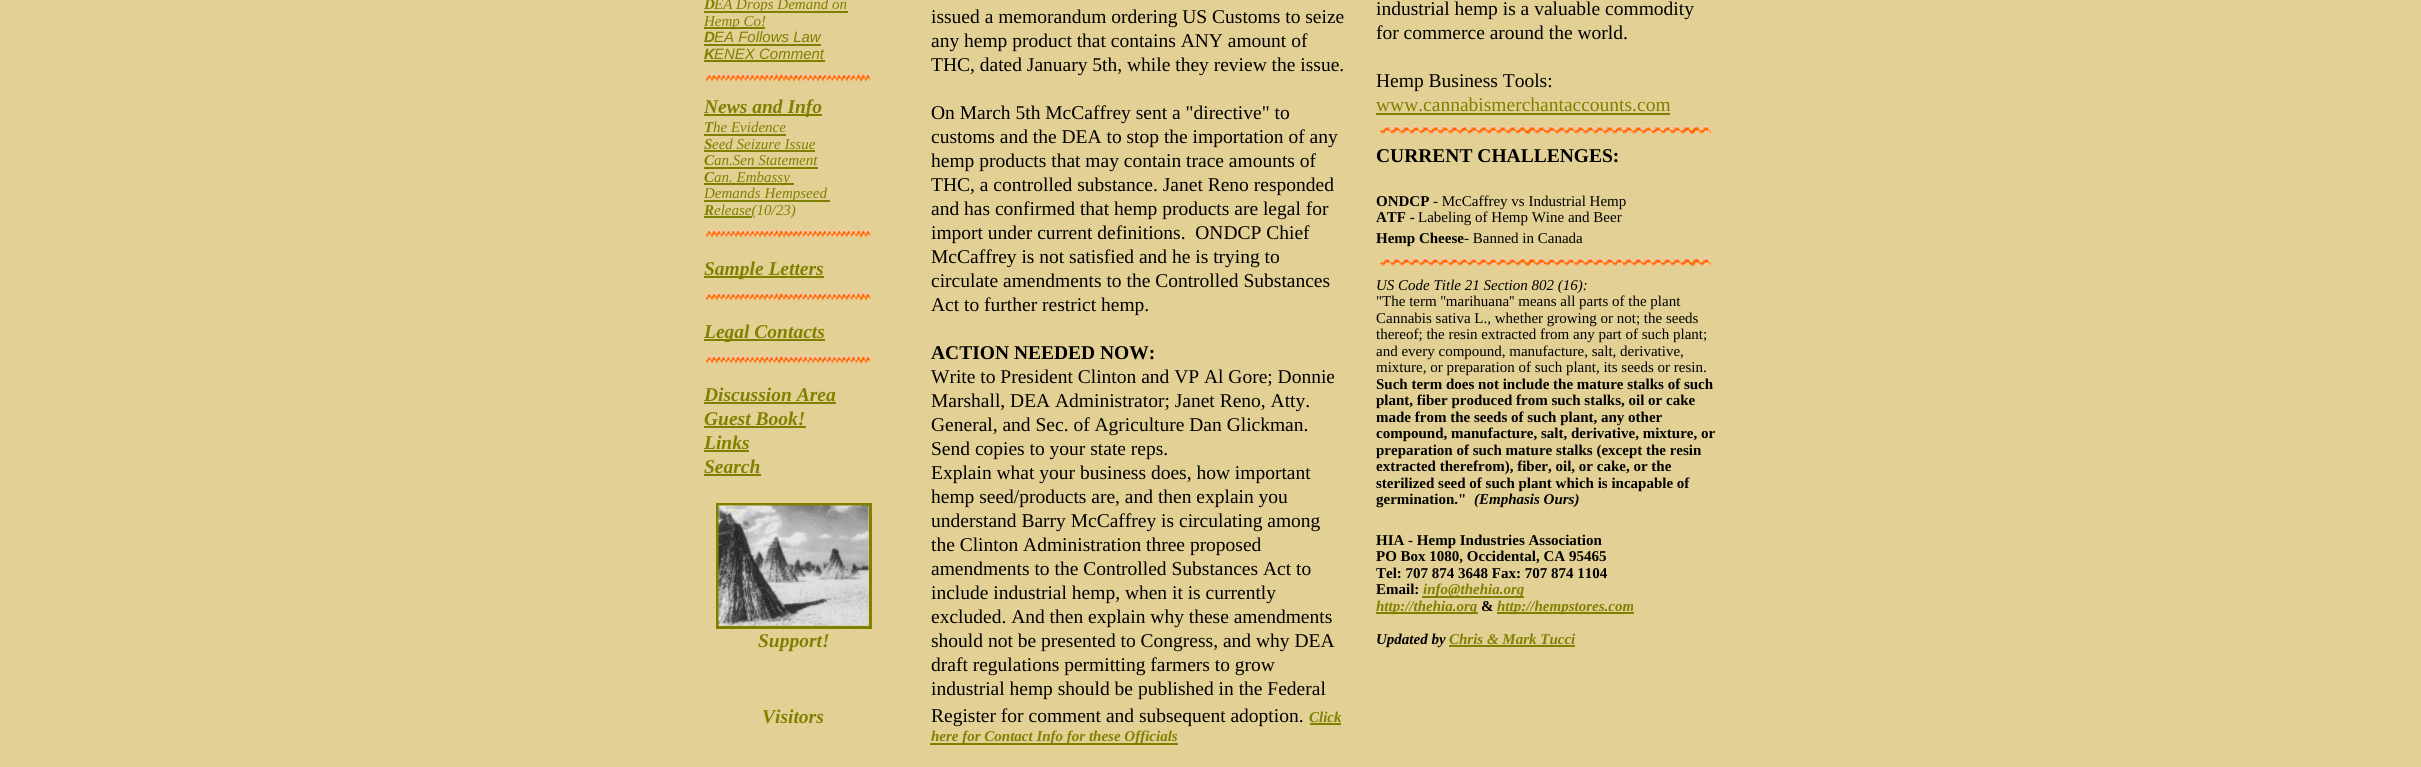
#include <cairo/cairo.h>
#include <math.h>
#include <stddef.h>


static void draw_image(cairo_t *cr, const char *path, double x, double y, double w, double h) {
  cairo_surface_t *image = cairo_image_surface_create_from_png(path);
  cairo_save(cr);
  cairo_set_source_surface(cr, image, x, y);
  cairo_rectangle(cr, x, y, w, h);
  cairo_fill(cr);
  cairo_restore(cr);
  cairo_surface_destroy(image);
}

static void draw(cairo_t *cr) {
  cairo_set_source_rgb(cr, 226 / 255.0, 208 / 255.0, 148 / 255.0);
  cairo_paint(cr);
  cairo_set_source_rgb(cr, 128 / 255.0, 128 / 255.0, 0);
  cairo_rectangle(cr, 704, 11, 124, 2);
  cairo_fill(cr);
  cairo_rectangle(cr, 828, 11, 20, 2);
  cairo_fill(cr);
  cairo_rectangle(cr, 704, 27, 61, 2);
  cairo_fill(cr);
  cairo_rectangle(cr, 704, 44, 117, 2);
  cairo_fill(cr);
  cairo_rectangle(cr, 704, 60, 121, 2);
  cairo_fill(cr);
  draw_image(cr, "images/1.png", 705, 73, 166, 9);
  cairo_rectangle(cr, 704, 114, 118, 2);
  cairo_fill(cr);
  cairo_rectangle(cr, 704, 134, 82, 2);
  cairo_fill(cr);
  cairo_rectangle(cr, 704, 150, 111, 2);
  cairo_fill(cr);
  cairo_rectangle(cr, 704, 167, 114, 2);
  cairo_fill(cr);
  cairo_rectangle(cr, 704, 183, 90, 2);
  cairo_fill(cr);
  cairo_rectangle(cr, 704, 200, 126, 2);
  cairo_fill(cr);
  cairo_rectangle(cr, 704, 216, 48, 2);
  cairo_fill(cr);
  draw_image(cr, "images/1.png", 705, 229, 166, 9);
  cairo_rectangle(cr, 704, 276, 120, 2);
  cairo_fill(cr);
  draw_image(cr, "images/1.png", 705, 292, 166, 9);
  cairo_rectangle(cr, 704, 339, 121, 2);
  cairo_fill(cr);
  draw_image(cr, "images/1.png", 705, 355, 166, 9);
  cairo_rectangle(cr, 704, 402, 132, 2);
  cairo_fill(cr);
  cairo_rectangle(cr, 704, 426, 102, 2);
  cairo_fill(cr);
  cairo_rectangle(cr, 704, 450, 45, 2);
  cairo_fill(cr);
  cairo_rectangle(cr, 704, 474, 57, 2);
  cairo_fill(cr);
  cairo_rectangle(cr, 717.5, 504.5, 153, 123);
  cairo_set_line_width(cr, 3);
  cairo_stroke(cr);
  draw_image(cr, "images/2.png", 718, 505, 151, 121);
  cairo_rectangle(cr, 1310, 723, 31, 2);
  cairo_fill(cr);
  cairo_rectangle(cr, 930, 743, 248, 2);
  cairo_fill(cr);
  cairo_rectangle(cr, 1376, 113, 294, 2);
  cairo_fill(cr);
  draw_image(cr, "images/3.png", 1379, 125, 332, 9);
  draw_image(cr, "images/3.png", 1379, 257, 332, 9);
  cairo_rectangle(cr, 1422, 596, 102, 2);
  cairo_fill(cr);
  cairo_rectangle(cr, 1376, 612, 102, 2);
  cairo_fill(cr);
  cairo_rectangle(cr, 1497, 612, 137, 2);
  cairo_fill(cr);
  cairo_rectangle(cr, 1449, 645, 126, 2);
  cairo_fill(cr);
  cairo_select_font_face(cr, "Liberation Serif", CAIRO_FONT_SLANT_ITALIC, CAIRO_FONT_WEIGHT_BOLD);
  cairo_set_font_size(cr, 15);
  cairo_move_to(cr, 704, 9);
  cairo_show_text(cr, "D");
  cairo_select_font_face(cr, "Liberation Serif", CAIRO_FONT_SLANT_ITALIC, CAIRO_FONT_WEIGHT_NORMAL);
  cairo_move_to(cr, 714, 9);
  cairo_show_text(cr, "EA Drops Demand on");
  cairo_move_to(cr, 704, 26);
  cairo_show_text(cr, "Hemp Co!");
  cairo_select_font_face(cr, "Liberation Sans", CAIRO_FONT_SLANT_ITALIC, CAIRO_FONT_WEIGHT_BOLD);
  cairo_move_to(cr, 704, 42);
  cairo_show_text(cr, "D");
  cairo_select_font_face(cr, "Liberation Sans", CAIRO_FONT_SLANT_ITALIC, CAIRO_FONT_WEIGHT_NORMAL);
  cairo_move_to(cr, 714, 42);
  cairo_show_text(cr, "EA Follows Law");
  cairo_select_font_face(cr, "Liberation Sans", CAIRO_FONT_SLANT_ITALIC, CAIRO_FONT_WEIGHT_BOLD);
  cairo_move_to(cr, 704, 59);
  cairo_show_text(cr, "K");
  cairo_select_font_face(cr, "Liberation Sans", CAIRO_FONT_SLANT_ITALIC, CAIRO_FONT_WEIGHT_NORMAL);
  cairo_move_to(cr, 714, 59);
  cairo_show_text(cr, "ENEX Comment");
  cairo_select_font_face(cr, "Liberation Serif", CAIRO_FONT_SLANT_ITALIC, CAIRO_FONT_WEIGHT_BOLD);
  cairo_set_font_size(cr, 19.5);
  cairo_move_to(cr, 704, 113);
  cairo_show_text(cr, "News and Info");
  cairo_set_font_size(cr, 15);
  cairo_move_to(cr, 704, 132);
  cairo_show_text(cr, "T");
  cairo_select_font_face(cr, "Liberation Serif", CAIRO_FONT_SLANT_ITALIC, CAIRO_FONT_WEIGHT_NORMAL);
  cairo_move_to(cr, 713, 132);
  cairo_show_text(cr, "he Evidence");
  cairo_select_font_face(cr, "Liberation Serif", CAIRO_FONT_SLANT_ITALIC, CAIRO_FONT_WEIGHT_BOLD);
  cairo_move_to(cr, 704, 149);
  cairo_show_text(cr, "S");
  cairo_select_font_face(cr, "Liberation Serif", CAIRO_FONT_SLANT_ITALIC, CAIRO_FONT_WEIGHT_NORMAL);
  cairo_move_to(cr, 712, 149);
  cairo_show_text(cr, "eed Seizure Issue");
  cairo_select_font_face(cr, "Liberation Serif", CAIRO_FONT_SLANT_ITALIC, CAIRO_FONT_WEIGHT_BOLD);
  cairo_move_to(cr, 704, 165);
  cairo_show_text(cr, "C");
  cairo_select_font_face(cr, "Liberation Serif", CAIRO_FONT_SLANT_ITALIC, CAIRO_FONT_WEIGHT_NORMAL);
  cairo_move_to(cr, 714, 165);
  cairo_show_text(cr, "an.Sen Statement");
  cairo_select_font_face(cr, "Liberation Serif", CAIRO_FONT_SLANT_ITALIC, CAIRO_FONT_WEIGHT_BOLD);
  cairo_move_to(cr, 704, 182);
  cairo_show_text(cr, "C");
  cairo_select_font_face(cr, "Liberation Serif", CAIRO_FONT_SLANT_ITALIC, CAIRO_FONT_WEIGHT_NORMAL);
  cairo_move_to(cr, 714, 182);
  cairo_show_text(cr, "an. Embassy");
  cairo_move_to(cr, 704, 198);
  cairo_show_text(cr, "Demands Hempseed");
  cairo_select_font_face(cr, "Liberation Serif", CAIRO_FONT_SLANT_ITALIC, CAIRO_FONT_WEIGHT_BOLD);
  cairo_move_to(cr, 704, 215);
  cairo_show_text(cr, "R");
  cairo_select_font_face(cr, "Liberation Serif", CAIRO_FONT_SLANT_ITALIC, CAIRO_FONT_WEIGHT_NORMAL);
  cairo_move_to(cr, 714, 215);
  cairo_show_text(cr, "elease(10/23)");
  cairo_select_font_face(cr, "Liberation Serif", CAIRO_FONT_SLANT_ITALIC, CAIRO_FONT_WEIGHT_BOLD);
  cairo_set_font_size(cr, 19.5);
  cairo_move_to(cr, 704, 275);
  cairo_show_text(cr, "Sample Letters");
  cairo_move_to(cr, 704, 338);
  cairo_show_text(cr, "Legal Contacts");
  cairo_move_to(cr, 704, 401);
  cairo_show_text(cr, "Discussion Area");
  cairo_move_to(cr, 704, 425);
  cairo_show_text(cr, "Guest Book!");
  cairo_move_to(cr, 704, 449);
  cairo_show_text(cr, "Links");
  cairo_move_to(cr, 704, 473);
  cairo_show_text(cr, "Search");
  cairo_move_to(cr, 758, 647);
  cairo_show_text(cr, "Support!");
  cairo_move_to(cr, 762, 723);
  cairo_show_text(cr, "Visitors");
  cairo_select_font_face(cr, "Liberation Serif", CAIRO_FONT_SLANT_NORMAL, CAIRO_FONT_WEIGHT_NORMAL);
  cairo_set_source_rgb(cr, 0, 0, 0);
  cairo_move_to(cr, 931, 23);
  cairo_show_text(cr, "issued a memorandum ordering US Customs to seize");
  cairo_move_to(cr, 931, 47);
  cairo_show_text(cr, "any hemp product that contains ANY amount of");
  cairo_move_to(cr, 931, 71);
  cairo_show_text(cr, "THC, dated January 5th, while they review the issue.");
  cairo_move_to(cr, 931, 119);
  cairo_show_text(cr, "On March 5th McCaffrey sent a \"directive\" to");
  cairo_move_to(cr, 931, 143);
  cairo_show_text(cr, "customs and the DEA to stop the importation of any");
  cairo_move_to(cr, 931, 167);
  cairo_show_text(cr, "hemp products that may contain trace amounts of");
  cairo_move_to(cr, 931, 191);
  cairo_show_text(cr, "THC, a controlled substance. Janet Reno responded");
  cairo_move_to(cr, 931, 215);
  cairo_show_text(cr, "and has confirmed that hemp products are legal for");
  cairo_move_to(cr, 931, 239);
  cairo_show_text(cr, "import under current definitions.  ONDCP Chief");
  cairo_move_to(cr, 931, 263);
  cairo_show_text(cr, "McCaffrey is not satisfied and he is trying to");
  cairo_move_to(cr, 931, 287);
  cairo_show_text(cr, "circulate amendments to the Controlled Substances");
  cairo_move_to(cr, 931, 311);
  cairo_show_text(cr, "Act to further restrict hemp.");
  cairo_select_font_face(cr, "Liberation Serif", CAIRO_FONT_SLANT_NORMAL, CAIRO_FONT_WEIGHT_BOLD);
  cairo_move_to(cr, 931, 359);
  cairo_show_text(cr, "ACTION NEEDED NOW:");
  cairo_select_font_face(cr, "Liberation Serif", CAIRO_FONT_SLANT_NORMAL, CAIRO_FONT_WEIGHT_NORMAL);
  cairo_move_to(cr, 931, 383);
  cairo_show_text(cr, "Write to President Clinton and VP Al Gore; Donnie");
  cairo_move_to(cr, 931, 407);
  cairo_show_text(cr, "Marshall, DEA Administrator; Janet Reno, Atty.");
  cairo_move_to(cr, 931, 431);
  cairo_show_text(cr, "General, and Sec. of Agriculture Dan Glickman.");
  cairo_move_to(cr, 931, 455);
  cairo_show_text(cr, "Send copies to your state reps.");
  cairo_move_to(cr, 931, 479);
  cairo_show_text(cr, "Explain what your business does, how important");
  cairo_move_to(cr, 931, 503);
  cairo_show_text(cr, "hemp seed/products are, and then explain you");
  cairo_move_to(cr, 931, 527);
  cairo_show_text(cr, "understand Barry McCaffrey is circulating among");
  cairo_move_to(cr, 931, 551);
  cairo_show_text(cr, "the Clinton Administration three proposed");
  cairo_move_to(cr, 931, 575);
  cairo_show_text(cr, "amendments to the Controlled Substances Act to");
  cairo_move_to(cr, 931, 599);
  cairo_show_text(cr, "include industrial hemp, when it is currently");
  cairo_move_to(cr, 931, 623);
  cairo_show_text(cr, "excluded. And then explain why these amendments");
  cairo_move_to(cr, 931, 647);
  cairo_show_text(cr, "should not be presented to Congress, and why DEA");
  cairo_move_to(cr, 931, 671);
  cairo_show_text(cr, "draft regulations permitting farmers to grow");
  cairo_move_to(cr, 931, 695);
  cairo_show_text(cr, "industrial hemp should be published in the Federal");
  cairo_move_to(cr, 931, 722);
  cairo_show_text(cr, "Register for comment and subsequent adoption.");
  cairo_select_font_face(cr, "Liberation Serif", CAIRO_FONT_SLANT_ITALIC, CAIRO_FONT_WEIGHT_BOLD);
  cairo_set_font_size(cr, 15);
  cairo_set_source_rgb(cr, 128 / 255.0, 128 / 255.0, 0);
  cairo_move_to(cr, 1309, 722);
  cairo_show_text(cr, "Click");
  cairo_move_to(cr, 931, 741);
  cairo_show_text(cr, "here for Contact Info for these Officials");
  cairo_select_font_face(cr, "Liberation Serif", CAIRO_FONT_SLANT_NORMAL, CAIRO_FONT_WEIGHT_NORMAL);
  cairo_set_font_size(cr, 19.5);
  cairo_set_source_rgb(cr, 0, 0, 0);
  cairo_move_to(cr, 1376, 15);
  cairo_show_text(cr, "industrial hemp is a valuable commodity");
  cairo_move_to(cr, 1376, 39);
  cairo_show_text(cr, "for commerce around the world.");
  cairo_move_to(cr, 1376, 87);
  cairo_show_text(cr, "Hemp Business Tools:");
  cairo_set_source_rgb(cr, 128 / 255.0, 128 / 255.0, 0);
  cairo_move_to(cr, 1376, 111);
  cairo_show_text(cr, "www.cannabismerchantaccounts.com");
  cairo_select_font_face(cr, "Liberation Serif", CAIRO_FONT_SLANT_NORMAL, CAIRO_FONT_WEIGHT_BOLD);
  cairo_set_source_rgb(cr, 0, 0, 0);
  cairo_move_to(cr, 1376, 162);
  cairo_show_text(cr, "CURRENT CHALLENGES:");
  cairo_set_font_size(cr, 15);
  cairo_move_to(cr, 1376, 206);
  cairo_show_text(cr, "ONDCP");
  cairo_select_font_face(cr, "Liberation Serif", CAIRO_FONT_SLANT_NORMAL, CAIRO_FONT_WEIGHT_NORMAL);
  cairo_move_to(cr, 1433, 206);
  cairo_show_text(cr, "- McCaffrey vs Industrial Hemp");
  cairo_select_font_face(cr, "Liberation Serif", CAIRO_FONT_SLANT_NORMAL, CAIRO_FONT_WEIGHT_BOLD);
  cairo_move_to(cr, 1376, 222);
  cairo_show_text(cr, "ATF -");
  cairo_select_font_face(cr, "Liberation Serif", CAIRO_FONT_SLANT_NORMAL, CAIRO_FONT_WEIGHT_NORMAL);
  cairo_move_to(cr, 1418, 222);
  cairo_show_text(cr, "Labeling of Hemp Wine and Beer");
  cairo_select_font_face(cr, "Liberation Serif", CAIRO_FONT_SLANT_NORMAL, CAIRO_FONT_WEIGHT_BOLD);
  cairo_move_to(cr, 1376, 243);
  cairo_show_text(cr, "Hemp Cheese");
  cairo_select_font_face(cr, "Liberation Serif", CAIRO_FONT_SLANT_NORMAL, CAIRO_FONT_WEIGHT_NORMAL);
  cairo_move_to(cr, 1464, 243);
  cairo_show_text(cr, "- Banned in Canada");
  cairo_select_font_face(cr, "Liberation Serif", CAIRO_FONT_SLANT_ITALIC, CAIRO_FONT_WEIGHT_NORMAL);
  cairo_move_to(cr, 1376, 290);
  cairo_show_text(cr, "US Code Title 21 Section 802 (16):");
  cairo_select_font_face(cr, "Liberation Serif", CAIRO_FONT_SLANT_NORMAL, CAIRO_FONT_WEIGHT_NORMAL);
  cairo_move_to(cr, 1376, 306);
  cairo_show_text(cr, "\"The term ''marihuana'' means all parts of the plant");
  cairo_move_to(cr, 1376, 323);
  cairo_show_text(cr, "Cannabis sativa L., whether growing or not; the seeds");
  cairo_move_to(cr, 1376, 339);
  cairo_show_text(cr, "thereof; the resin extracted from any part of such plant;");
  cairo_move_to(cr, 1376, 356);
  cairo_show_text(cr, "and every compound, manufacture, salt, derivative,");
  cairo_move_to(cr, 1376, 372);
  cairo_show_text(cr, "mixture, or preparation of such plant, its seeds or resin.");
  cairo_select_font_face(cr, "Liberation Serif", CAIRO_FONT_SLANT_NORMAL, CAIRO_FONT_WEIGHT_BOLD);
  cairo_move_to(cr, 1376, 389);
  cairo_show_text(cr, "Such term does not include the mature stalks of such");
  cairo_move_to(cr, 1376, 405);
  cairo_show_text(cr, "plant, fiber produced from such stalks, oil or cake");
  cairo_move_to(cr, 1376, 422);
  cairo_show_text(cr, "made from the seeds of such plant, any other");
  cairo_move_to(cr, 1376, 438);
  cairo_show_text(cr, "compound, manufacture, salt, derivative, mixture, or");
  cairo_move_to(cr, 1376, 455);
  cairo_show_text(cr, "preparation of such mature stalks (except the resin");
  cairo_move_to(cr, 1376, 471);
  cairo_show_text(cr, "extracted therefrom), fiber, oil, or cake, or the");
  cairo_move_to(cr, 1376, 488);
  cairo_show_text(cr, "sterilized seed of such plant which is incapable of");
  cairo_move_to(cr, 1376, 504);
  cairo_show_text(cr, "germination.\"");
  cairo_select_font_face(cr, "Liberation Serif", CAIRO_FONT_SLANT_ITALIC, CAIRO_FONT_WEIGHT_BOLD);
  cairo_move_to(cr, 1474, 504);
  cairo_show_text(cr, "(Emphasis Ours)");
  cairo_select_font_face(cr, "Liberation Serif", CAIRO_FONT_SLANT_NORMAL, CAIRO_FONT_WEIGHT_BOLD);
  cairo_move_to(cr, 1376, 545);
  cairo_show_text(cr, "HIA - Hemp Industries Association");
  cairo_move_to(cr, 1376, 561);
  cairo_show_text(cr, "PO Box 1080, Occidental, CA 95465");
  cairo_move_to(cr, 1376, 578);
  cairo_show_text(cr, "Tel: 707 874 3648 Fax: 707 874 1104");
  cairo_move_to(cr, 1376, 594);
  cairo_show_text(cr, "Email:");
  cairo_select_font_face(cr, "Liberation Serif", CAIRO_FONT_SLANT_ITALIC, CAIRO_FONT_WEIGHT_BOLD);
  cairo_set_source_rgb(cr, 128 / 255.0, 128 / 255.0, 0);
  cairo_move_to(cr, 1423, 594);
  cairo_show_text(cr, "info@thehia.org");
  cairo_move_to(cr, 1376, 611);
  cairo_show_text(cr, "http://thehia.org");
  cairo_select_font_face(cr, "Liberation Serif", CAIRO_FONT_SLANT_NORMAL, CAIRO_FONT_WEIGHT_BOLD);
  cairo_set_source_rgb(cr, 0, 0, 0);
  cairo_move_to(cr, 1481, 611);
  cairo_show_text(cr, "&");
  cairo_select_font_face(cr, "Liberation Serif", CAIRO_FONT_SLANT_ITALIC, CAIRO_FONT_WEIGHT_BOLD);
  cairo_set_source_rgb(cr, 128 / 255.0, 128 / 255.0, 0);
  cairo_move_to(cr, 1497, 611);
  cairo_show_text(cr, "http://hempstores.com");
  cairo_set_source_rgb(cr, 0, 0, 0);
  cairo_move_to(cr, 1376, 644);
  cairo_show_text(cr, "Updated by");
  cairo_set_source_rgb(cr, 128 / 255.0, 128 / 255.0, 0);
  cairo_move_to(cr, 1449, 644);
  cairo_show_text(cr, "Chris & Mark Tucci");
}

int main(void) {
  cairo_surface_t *surface = cairo_image_surface_create(CAIRO_FORMAT_RGB24, 2421, 767);
  cairo_t *cr = cairo_create(surface);
  cairo_font_options_t *options = cairo_font_options_create();
  cairo_font_options_set_hint_metrics(options, CAIRO_HINT_METRICS_OFF);
  cairo_font_options_set_hint_style(options, CAIRO_HINT_STYLE_NONE);
  cairo_set_font_options(cr, options);
  cairo_set_miter_limit(cr, 4);
  draw(cr);
  cairo_surface_write_to_png(surface, "out.png");
  cairo_font_options_destroy(options);
  cairo_destroy(cr);
  cairo_surface_destroy(surface);
  return 0;
}
